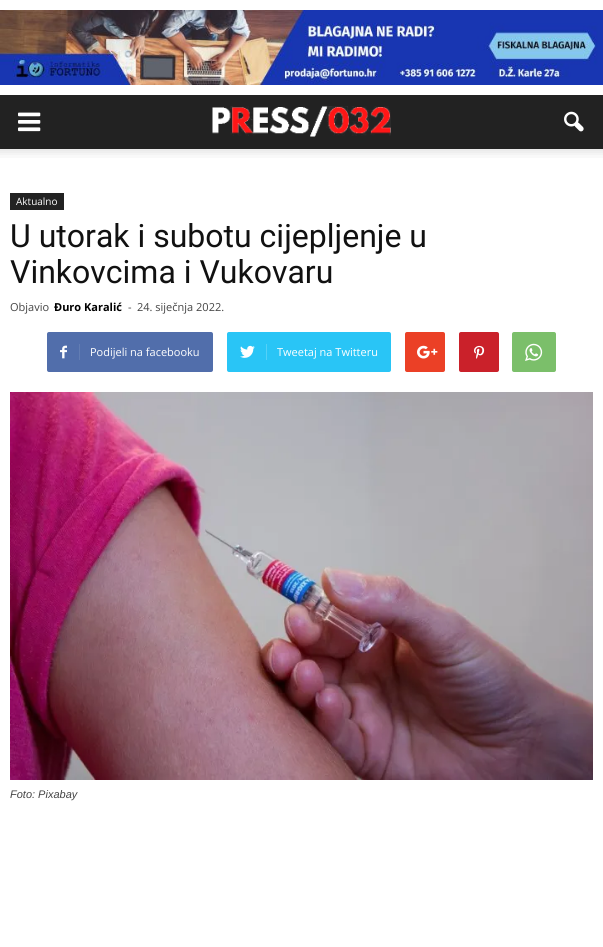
#include <cairo/cairo.h>
#include <math.h>
#include <stddef.h>


static void rounded_rect(cairo_t *cr, double x, double y, double w, double h, double r) {
  cairo_new_sub_path(cr);
  cairo_arc(cr, x + w - r, y + h - r, r, 0, M_PI / 2);
  cairo_arc(cr, x + r, y + h - r, r, M_PI / 2, M_PI);
  cairo_arc(cr, x + r, y + r, r, M_PI, 1.5 * M_PI);
  cairo_arc(cr, x + w - r, y + r, r, 1.5 * M_PI, 2 * M_PI);
  cairo_close_path(cr);
}

static void draw_image(cairo_t *cr, const char *path, double x, double y, double w, double h) {
  cairo_surface_t *image = cairo_image_surface_create_from_png(path);
  cairo_save(cr);
  cairo_set_source_surface(cr, image, x, y);
  cairo_rectangle(cr, x, y, w, h);
  cairo_fill(cr);
  cairo_restore(cr);
  cairo_surface_destroy(image);
}

static void draw(cairo_t *cr) {
  cairo_set_source_rgb(cr, 1, 1, 1);
  cairo_paint(cr);
  draw_image(cr, "images/1.png", 0, 10, 603, 75);
  cairo_set_source_rgb(cr, 34 / 255.0, 34 / 255.0, 34 / 255.0);
  cairo_rectangle(cr, 0, 95, 603, 54);
  cairo_fill(cr);
  draw_image(cr, "images/2.png", 18, 112, 23, 20);
  draw_image(cr, "images/3.png", 212, 106, 179, 31);
  draw_image(cr, "images/4.png", 564, 111, 20, 21);
  draw_image(cr, "images/5.png", 0, 149, 603, 9);
  cairo_rectangle(cr, 10, 193, 54, 17);
  cairo_fill(cr);
  cairo_set_source_rgb(cr, 81 / 255.0, 110 / 255.0, 171 / 255.0);
  rounded_rect(cr, 47, 332, 166, 40, 2);
  cairo_fill(cr);
  draw_image(cr, "images/6.png", 60, 345, 7, 14);
  cairo_set_source_rgb(cr, 98 / 255.0, 125 / 255.0, 179 / 255.0);
  cairo_rectangle(cr, 79, 344, 1, 16);
  cairo_fill(cr);
  cairo_set_source_rgb(cr, 41 / 255.0, 197 / 255.0, 246 / 255.0);
  rounded_rect(cr, 227, 332, 164, 40, 2);
  cairo_fill(cr);
  draw_image(cr, "images/7.png", 240, 345, 15, 13);
  cairo_set_source_rgb(cr, 84 / 255.0, 209 / 255.0, 248 / 255.0);
  cairo_rectangle(cr, 266, 344, 1, 16);
  cairo_fill(cr);
  cairo_set_source_rgb(cr, 235 / 255.0, 64 / 255.0, 38 / 255.0);
  rounded_rect(cr, 405, 332, 40, 40, 2);
  cairo_fill(cr);
  draw_image(cr, "images/8.png", 417, 345, 21, 14);
  cairo_set_source_rgb(cr, 202 / 255.0, 33 / 255.0, 42 / 255.0);
  rounded_rect(cr, 459, 332, 40, 40, 2);
  cairo_fill(cr);
  draw_image(cr, "images/9.png", 474, 345, 11, 14);
  cairo_set_source_rgb(cr, 123 / 255.0, 191 / 255.0, 106 / 255.0);
  rounded_rect(cr, 512, 332, 44, 40, 2);
  cairo_fill(cr);
  draw_image(cr, "images/10.png", 525, 343, 18, 18);
  draw_image(cr, "images/11.png", 10, 392, 583, 388);
  cairo_select_font_face(cr, "Open Sans", CAIRO_FONT_SLANT_NORMAL, CAIRO_FONT_WEIGHT_NORMAL);
  cairo_set_font_size(cr, 10);
  cairo_set_source_rgb(cr, 1, 1, 1);
  cairo_move_to(cr, 16, 205);
  cairo_show_text(cr, "Aktualno");
  cairo_select_font_face(cr, "Roboto", CAIRO_FONT_SLANT_NORMAL, CAIRO_FONT_WEIGHT_NORMAL);
  cairo_set_font_size(cr, 32);
  cairo_set_source_rgb(cr, 17 / 255.0, 17 / 255.0, 17 / 255.0);
  cairo_move_to(cr, 10, 247);
  cairo_show_text(cr, "U utorak i subotu cijepljenje u");
  cairo_move_to(cr, 10, 283);
  cairo_show_text(cr, "Vinkovcima i Vukovaru");
  cairo_select_font_face(cr, "Open Sans", CAIRO_FONT_SLANT_NORMAL, CAIRO_FONT_WEIGHT_NORMAL);
  cairo_set_font_size(cr, 11);
  cairo_set_source_rgb(cr, 68 / 255.0, 68 / 255.0, 68 / 255.0);
  cairo_move_to(cr, 10, 311);
  cairo_show_text(cr, "Objavio");
  cairo_select_font_face(cr, "Open Sans", CAIRO_FONT_SLANT_NORMAL, CAIRO_FONT_WEIGHT_BOLD);
  cairo_set_source_rgb(cr, 0, 0, 0);
  cairo_move_to(cr, 54, 311);
  cairo_show_text(cr, "Đuro Karalić");
  cairo_select_font_face(cr, "Open Sans", CAIRO_FONT_SLANT_NORMAL, CAIRO_FONT_WEIGHT_NORMAL);
  cairo_set_source_rgb(cr, 68 / 255.0, 68 / 255.0, 68 / 255.0);
  cairo_move_to(cr, 128, 311);
  cairo_show_text(cr, "-");
  cairo_move_to(cr, 137, 311);
  cairo_show_text(cr, "24. siječnja 2022.");
  cairo_set_source_rgb(cr, 1, 1, 1);
  cairo_move_to(cr, 90, 356);
  cairo_show_text(cr, "Podijeli na facebooku");
  cairo_move_to(cr, 277, 356);
  cairo_show_text(cr, "Tweetaj na Twitteru");
  cairo_select_font_face(cr, "Liberation Sans", CAIRO_FONT_SLANT_ITALIC, CAIRO_FONT_WEIGHT_NORMAL);
  cairo_set_source_rgb(cr, 68 / 255.0, 68 / 255.0, 68 / 255.0);
  cairo_move_to(cr, 10, 798);
  cairo_show_text(cr, "Foto: Pixabay");
}

int main(void) {
  cairo_surface_t *surface = cairo_image_surface_create(CAIRO_FORMAT_RGB24, 603, 947);
  cairo_t *cr = cairo_create(surface);
  cairo_font_options_t *options = cairo_font_options_create();
  cairo_font_options_set_hint_metrics(options, CAIRO_HINT_METRICS_OFF);
  cairo_font_options_set_hint_style(options, CAIRO_HINT_STYLE_NONE);
  cairo_set_font_options(cr, options);
  cairo_set_miter_limit(cr, 4);
  draw(cr);
  cairo_surface_write_to_png(surface, "out.png");
  cairo_font_options_destroy(options);
  cairo_destroy(cr);
  cairo_surface_destroy(surface);
  return 0;
}
